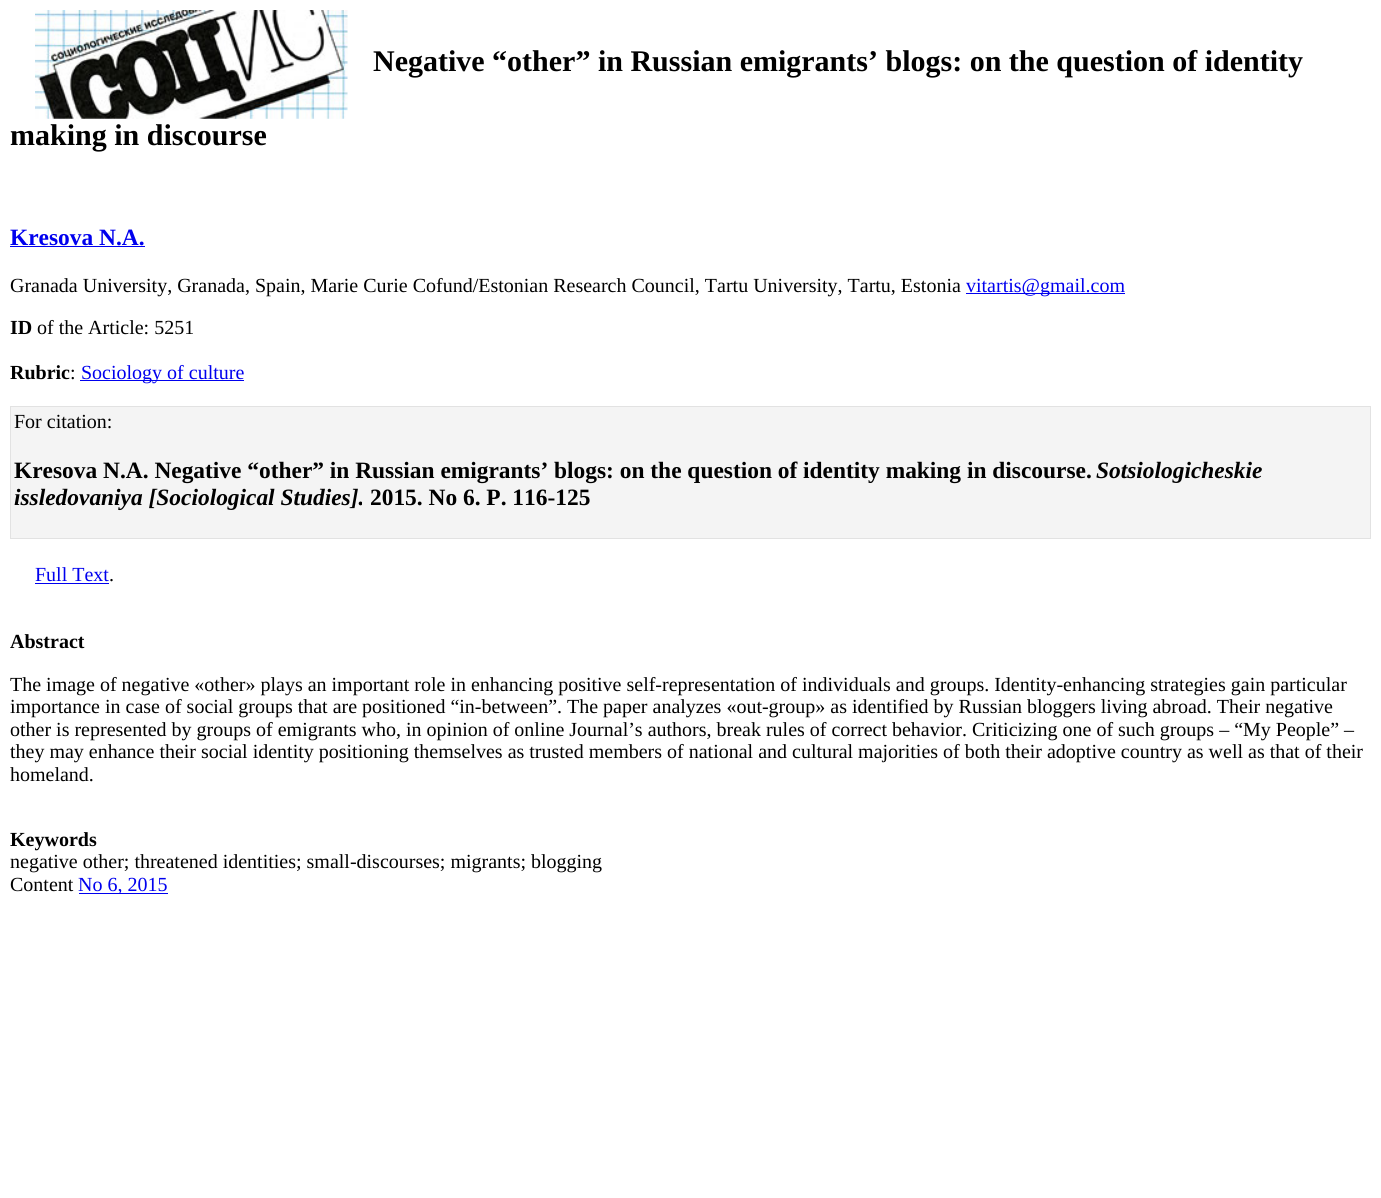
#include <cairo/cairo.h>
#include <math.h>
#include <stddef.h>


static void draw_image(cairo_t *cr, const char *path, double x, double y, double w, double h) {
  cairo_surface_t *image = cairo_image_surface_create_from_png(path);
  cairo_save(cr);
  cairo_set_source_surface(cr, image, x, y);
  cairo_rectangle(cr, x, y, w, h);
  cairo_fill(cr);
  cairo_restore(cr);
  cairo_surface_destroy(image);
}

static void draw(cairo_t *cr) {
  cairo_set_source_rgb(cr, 1, 1, 1);
  cairo_paint(cr);
  draw_image(cr, "images/1.png", 35, 10, 313, 109);
  cairo_set_source_rgb(cr, 0, 0, 238 / 255.0);
  cairo_rectangle(cr, 10, 246, 135, 1);
  cairo_fill(cr);
  cairo_rectangle(cr, 966, 293, 159, 1);
  cairo_fill(cr);
  cairo_rectangle(cr, 80, 380, 164, 1);
  cairo_fill(cr);
  cairo_set_source_rgb(cr, 244 / 255.0, 244 / 255.0, 244 / 255.0);
  cairo_rectangle(cr, 10.5, 406.5, 1360, 132);
  cairo_fill_preserve(cr);
  cairo_set_source_rgb(cr, 226 / 255.0, 226 / 255.0, 226 / 255.0);
  cairo_set_line_width(cr, 1);
  cairo_stroke(cr);
  cairo_set_source_rgb(cr, 0, 0, 238 / 255.0);
  cairo_rectangle(cr, 35, 583, 74, 1);
  cairo_fill(cr);
  cairo_rectangle(cr, 79, 893, 89, 1);
  cairo_fill(cr);
  cairo_select_font_face(cr, "Liberation Serif", CAIRO_FONT_SLANT_NORMAL, CAIRO_FONT_WEIGHT_BOLD);
  cairo_set_font_size(cr, 30);
  cairo_set_source_rgb(cr, 0, 0, 0);
  cairo_move_to(cr, 373, 71);
  cairo_show_text(cr, "Negative “other” in Russian emigrants’ blogs: on the question of identity");
  cairo_move_to(cr, 10, 145);
  cairo_show_text(cr, "making in discourse");
  cairo_set_font_size(cr, 23.4);
  cairo_set_source_rgb(cr, 0, 0, 238 / 255.0);
  cairo_move_to(cr, 10, 245);
  cairo_show_text(cr, "Kresova N.А.");
  cairo_select_font_face(cr, "Liberation Serif", CAIRO_FONT_SLANT_NORMAL, CAIRO_FONT_WEIGHT_NORMAL);
  cairo_set_font_size(cr, 20);
  cairo_set_source_rgb(cr, 0, 0, 0);
  cairo_move_to(cr, 10, 292);
  cairo_show_text(cr, "Granada University, Granada, Spain, Marie Curie Cofund/Estonian Research Council, Tartu University, Tartu, Estonia");
  cairo_set_source_rgb(cr, 0, 0, 238 / 255.0);
  cairo_move_to(cr, 966, 292);
  cairo_show_text(cr, "vitartis@gmail.com");
  cairo_select_font_face(cr, "Liberation Serif", CAIRO_FONT_SLANT_NORMAL, CAIRO_FONT_WEIGHT_BOLD);
  cairo_set_source_rgb(cr, 0, 0, 0);
  cairo_move_to(cr, 10, 334);
  cairo_show_text(cr, "ID");
  cairo_select_font_face(cr, "Liberation Serif", CAIRO_FONT_SLANT_NORMAL, CAIRO_FONT_WEIGHT_NORMAL);
  cairo_move_to(cr, 37, 334);
  cairo_show_text(cr, "of the Article: 5251");
  cairo_select_font_face(cr, "Liberation Serif", CAIRO_FONT_SLANT_NORMAL, CAIRO_FONT_WEIGHT_BOLD);
  cairo_move_to(cr, 10, 379);
  cairo_show_text(cr, "Rubric");
  cairo_select_font_face(cr, "Liberation Serif", CAIRO_FONT_SLANT_NORMAL, CAIRO_FONT_WEIGHT_NORMAL);
  cairo_move_to(cr, 70, 379);
  cairo_show_text(cr, ":");
  cairo_set_source_rgb(cr, 0, 0, 238 / 255.0);
  cairo_move_to(cr, 81, 379);
  cairo_show_text(cr, "Sociology of culture");
  cairo_set_source_rgb(cr, 0, 0, 0);
  cairo_move_to(cr, 14, 428);
  cairo_show_text(cr, "For citation:");
  cairo_select_font_face(cr, "Liberation Serif", CAIRO_FONT_SLANT_NORMAL, CAIRO_FONT_WEIGHT_BOLD);
  cairo_set_font_size(cr, 23.4);
  cairo_move_to(cr, 14, 478);
  cairo_show_text(cr, "Kresova N.А. Negative “other” in Russian emigrants’ blogs: on the question of identity making in discourse.");
  cairo_select_font_face(cr, "Liberation Serif", CAIRO_FONT_SLANT_ITALIC, CAIRO_FONT_WEIGHT_BOLD);
  cairo_move_to(cr, 1096, 478);
  cairo_show_text(cr, "Sotsiologicheskie");
  cairo_move_to(cr, 14, 505);
  cairo_show_text(cr, "issledovaniya [Sociological Studies].");
  cairo_select_font_face(cr, "Liberation Serif", CAIRO_FONT_SLANT_NORMAL, CAIRO_FONT_WEIGHT_BOLD);
  cairo_move_to(cr, 370, 505);
  cairo_show_text(cr, "2015. No 6. P. 116-125");
  cairo_select_font_face(cr, "Liberation Serif", CAIRO_FONT_SLANT_NORMAL, CAIRO_FONT_WEIGHT_NORMAL);
  cairo_set_font_size(cr, 20);
  cairo_set_source_rgb(cr, 0, 0, 238 / 255.0);
  cairo_move_to(cr, 35, 581);
  cairo_show_text(cr, "Full Text");
  cairo_set_source_rgb(cr, 0, 0, 0);
  cairo_move_to(cr, 109, 581);
  cairo_show_text(cr, ".");
  cairo_select_font_face(cr, "Liberation Serif", CAIRO_FONT_SLANT_NORMAL, CAIRO_FONT_WEIGHT_BOLD);
  cairo_move_to(cr, 10, 648);
  cairo_show_text(cr, "Abstract");
  cairo_select_font_face(cr, "Liberation Serif", CAIRO_FONT_SLANT_NORMAL, CAIRO_FONT_WEIGHT_NORMAL);
  cairo_move_to(cr, 10, 691);
  cairo_show_text(cr, "The image of negative «other» plays an important role in enhancing positive self-representation of individuals and groups. Identity-enhancing strategies gain particular");
  cairo_move_to(cr, 10, 713);
  cairo_show_text(cr, "importance in case of social groups that are positioned “in-between”. The paper analyzes «out-group» as identified by Russian bloggers living abroad. Their negative");
  cairo_move_to(cr, 10, 736);
  cairo_show_text(cr, "other is represented by groups of emigrants who, in opinion of online Journal’s authors, break rules of correct behavior. Criticizing one of such groups – “My People” –");
  cairo_move_to(cr, 10, 758);
  cairo_show_text(cr, "they may enhance their social identity positioning themselves as trusted members of national and cultural majorities of both their adoptive country as well as that of their");
  cairo_move_to(cr, 10, 781);
  cairo_show_text(cr, "homeland.");
  cairo_select_font_face(cr, "Liberation Serif", CAIRO_FONT_SLANT_NORMAL, CAIRO_FONT_WEIGHT_BOLD);
  cairo_move_to(cr, 10, 846);
  cairo_show_text(cr, "Keywords");
  cairo_select_font_face(cr, "Liberation Serif", CAIRO_FONT_SLANT_NORMAL, CAIRO_FONT_WEIGHT_NORMAL);
  cairo_move_to(cr, 10, 868);
  cairo_show_text(cr, "negative other; threatened identities; small-discourses; migrants; blogging");
  cairo_move_to(cr, 10, 891);
  cairo_show_text(cr, "Content");
  cairo_set_source_rgb(cr, 0, 0, 238 / 255.0);
  cairo_move_to(cr, 78, 891);
  cairo_show_text(cr, "No 6, 2015");
}

int main(void) {
  cairo_surface_t *surface = cairo_image_surface_create(CAIRO_FORMAT_RGB24, 1381, 1198);
  cairo_t *cr = cairo_create(surface);
  cairo_font_options_t *options = cairo_font_options_create();
  cairo_font_options_set_hint_metrics(options, CAIRO_HINT_METRICS_OFF);
  cairo_font_options_set_hint_style(options, CAIRO_HINT_STYLE_NONE);
  cairo_set_font_options(cr, options);
  cairo_set_miter_limit(cr, 4);
  draw(cr);
  cairo_surface_write_to_png(surface, "out.png");
  cairo_font_options_destroy(options);
  cairo_destroy(cr);
  cairo_surface_destroy(surface);
  return 0;
}
